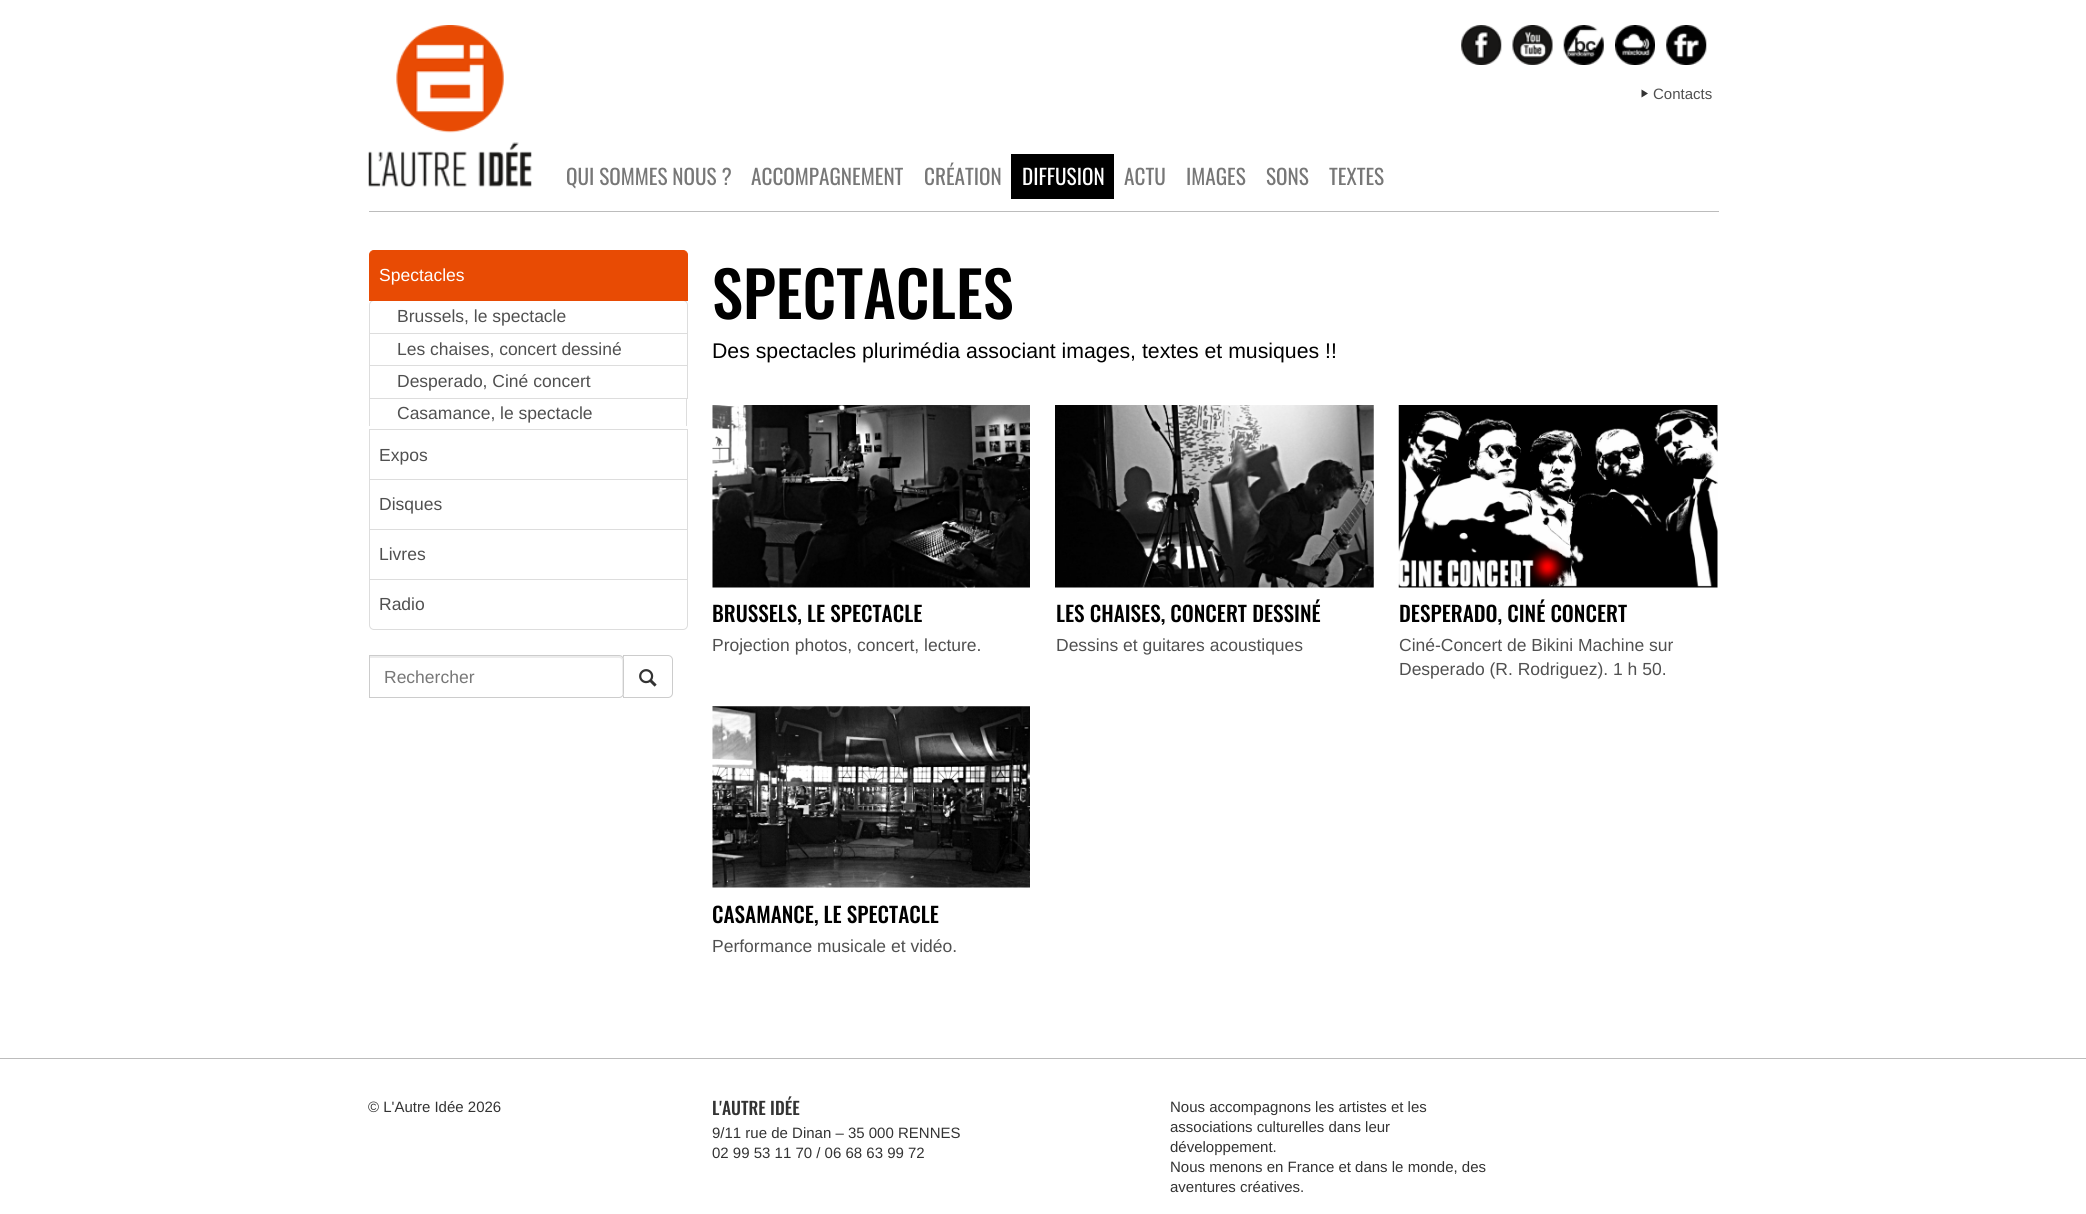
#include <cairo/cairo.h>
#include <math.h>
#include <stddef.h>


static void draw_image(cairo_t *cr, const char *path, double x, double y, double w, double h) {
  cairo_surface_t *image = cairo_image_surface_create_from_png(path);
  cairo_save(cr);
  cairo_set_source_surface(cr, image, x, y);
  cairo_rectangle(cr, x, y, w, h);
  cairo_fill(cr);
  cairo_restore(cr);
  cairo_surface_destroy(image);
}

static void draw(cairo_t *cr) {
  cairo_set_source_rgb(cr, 1, 1, 1);
  cairo_paint(cr);
  draw_image(cr, "images/1.png", 1461, 25, 41, 40);
  draw_image(cr, "images/2.png", 1512, 25, 41, 40);
  draw_image(cr, "images/3.png", 1563, 25, 41, 40);
  draw_image(cr, "images/4.png", 1615, 25, 40, 40);
  draw_image(cr, "images/5.png", 1666, 25, 41, 40);
  cairo_set_source_rgb(cr, 51 / 255.0, 51 / 255.0, 51 / 255.0);
  cairo_new_path(cr);
  cairo_move_to(cr, 1641.5, 97.5);
  cairo_line_to(cr, 1648, 93.5);
  cairo_line_to(cr, 1641.5, 89.5);
  cairo_close_path(cr);
  cairo_fill(cr);
  draw_image(cr, "images/6.png", 368, 25, 164, 162);
  cairo_set_source_rgb(cr, 0, 0, 0);
  cairo_rectangle(cr, 1011, 154, 103, 45);
  cairo_fill(cr);
  cairo_set_source_rgb(cr, 188 / 255.0, 188 / 255.0, 188 / 255.0);
  cairo_rectangle(cr, 369, 211, 1350, 1);
  cairo_fill(cr);
  cairo_new_path(cr);
  cairo_move_to(cr, 374, 300.5);
  cairo_line_to(cr, 683, 300.5);
  cairo_curve_to(cr, 685.5, 300.5, 687.5, 302.5, 687.5, 305);
  cairo_line_to(cr, 687.5, 333.5);
  cairo_line_to(cr, 369.5, 333.5);
  cairo_line_to(cr, 369.5, 305);
  cairo_curve_to(cr, 369.5, 302.5, 371.5, 300.5, 374, 300.5);
  cairo_close_path(cr);
  cairo_set_source_rgb(cr, 221 / 255.0, 221 / 255.0, 221 / 255.0);
  cairo_set_line_width(cr, 1);
  cairo_stroke(cr);
  cairo_set_source_rgb(cr, 232 / 255.0, 75 / 255.0, 4 / 255.0);
  cairo_new_path(cr);
  cairo_move_to(cr, 374, 250.5);
  cairo_line_to(cr, 683, 250.5);
  cairo_curve_to(cr, 685.5, 250.5, 687.5, 252.5, 687.5, 255);
  cairo_line_to(cr, 687.5, 300.5);
  cairo_line_to(cr, 369.5, 300.5);
  cairo_line_to(cr, 369.5, 255);
  cairo_curve_to(cr, 369.5, 252.5, 371.5, 250.5, 374, 250.5);
  cairo_close_path(cr);
  cairo_fill_preserve(cr);
  cairo_stroke(cr);
  cairo_rectangle(cr, 369.5, 333.5, 318, 32);
  cairo_set_source_rgb(cr, 221 / 255.0, 221 / 255.0, 221 / 255.0);
  cairo_stroke(cr);
  cairo_rectangle(cr, 369.5, 365.5, 318, 33);
  cairo_stroke(cr);
  cairo_set_source_rgb(cr, 1, 1, 1);
  cairo_new_path(cr);
  cairo_move_to(cr, 369, 398);
  cairo_line_to(cr, 688, 398);
  cairo_line_to(cr, 688, 424);
  cairo_curve_to(cr, 688, 427, 686, 429, 683, 429);
  cairo_line_to(cr, 374, 429);
  cairo_curve_to(cr, 371, 429, 369, 427, 369, 424);
  cairo_close_path(cr);
  cairo_fill(cr);
  cairo_set_source_rgb(cr, 221 / 255.0, 221 / 255.0, 221 / 255.0);
  cairo_rectangle(cr, 369, 398, 319, 1);
  cairo_fill(cr);
  cairo_rectangle(cr, 686, 398, 1, 28);
  cairo_fill(cr);
  cairo_rectangle(cr, 369, 398, 1, 28);
  cairo_fill(cr);
  cairo_rectangle(cr, 369.5, 429.5, 318, 50);
  cairo_stroke(cr);
  cairo_rectangle(cr, 369.5, 479.5, 318, 50);
  cairo_stroke(cr);
  cairo_rectangle(cr, 369.5, 529.5, 318, 50);
  cairo_stroke(cr);
  cairo_set_source_rgb(cr, 1, 1, 1);
  cairo_new_path(cr);
  cairo_move_to(cr, 369.5, 579.5);
  cairo_line_to(cr, 687.5, 579.5);
  cairo_line_to(cr, 687.5, 625);
  cairo_curve_to(cr, 687.5, 627.5, 685.5, 629.5, 683, 629.5);
  cairo_line_to(cr, 374, 629.5);
  cairo_curve_to(cr, 371.5, 629.5, 369.5, 627.5, 369.5, 625);
  cairo_close_path(cr);
  cairo_fill_preserve(cr);
  cairo_set_source_rgb(cr, 221 / 255.0, 221 / 255.0, 221 / 255.0);
  cairo_stroke(cr);
  cairo_new_path(cr);
  cairo_move_to(cr, 623.5, 655.5);
  cairo_line_to(cr, 668, 655.5);
  cairo_curve_to(cr, 670.5, 655.5, 672.5, 657.5, 672.5, 660);
  cairo_line_to(cr, 672.5, 693);
  cairo_curve_to(cr, 672.5, 695.5, 670.5, 697.5, 668, 697.5);
  cairo_line_to(cr, 623.5, 697.5);
  cairo_close_path(cr);
  cairo_set_source_rgb(cr, 204 / 255.0, 204 / 255.0, 204 / 255.0);
  cairo_stroke(cr);
  cairo_set_source_rgb(cr, 1, 1, 1);
  cairo_new_path(cr);
  cairo_move_to(cr, 369, 655);
  cairo_line_to(cr, 619, 655);
  cairo_curve_to(cr, 622, 655, 624, 657, 624, 660);
  cairo_line_to(cr, 624, 693);
  cairo_curve_to(cr, 624, 696, 622, 698, 619, 698);
  cairo_line_to(cr, 369, 698);
  cairo_close_path(cr);
  cairo_fill(cr);
  cairo_set_source_rgb(cr, 236 / 255.0, 236 / 255.0, 236 / 255.0);
  cairo_new_path(cr);
  cairo_move_to(cr, 370, 658);
  cairo_line_to(cr, 619, 658);
  cairo_curve_to(cr, 621, 658, 622, 659, 622, 661);
  cairo_line_to(cr, 622, 695);
  cairo_curve_to(cr, 623, 694, 623, 693, 623, 692);
  cairo_line_to(cr, 623, 660);
  cairo_curve_to(cr, 623, 658, 621, 656, 619, 656);
  cairo_line_to(cr, 370, 656);
  cairo_close_path(cr);
  cairo_fill(cr);
  cairo_new_path(cr);
  cairo_move_to(cr, 369.5, 655.5);
  cairo_line_to(cr, 619, 655.5);
  cairo_curve_to(cr, 621.5, 655.5, 623.5, 657.5, 623.5, 660);
  cairo_line_to(cr, 623.5, 693);
  cairo_curve_to(cr, 623.5, 695.5, 621.5, 697.5, 619, 697.5);
  cairo_line_to(cr, 369.5, 697.5);
  cairo_close_path(cr);
  cairo_set_source_rgb(cr, 204 / 255.0, 204 / 255.0, 204 / 255.0);
  cairo_stroke(cr);
  draw_image(cr, "images/7.png", 639, 669, 18, 18);
  draw_image(cr, "images/8.png", 712, 405, 318, 183);
  draw_image(cr, "images/9.png", 1055, 405, 319, 183);
  draw_image(cr, "images/10.png", 1398, 405, 320, 183);
  draw_image(cr, "images/11.png", 712, 706, 318, 182);
  cairo_set_source_rgb(cr, 188 / 255.0, 188 / 255.0, 188 / 255.0);
  cairo_rectangle(cr, 0, 1058, 2086, 1);
  cairo_fill(cr);
  cairo_select_font_face(cr, "Liberation Sans", CAIRO_FONT_SLANT_NORMAL, CAIRO_FONT_WEIGHT_NORMAL);
  cairo_set_font_size(cr, 15);
  cairo_set_source_rgb(cr, 80 / 255.0, 80 / 255.0, 80 / 255.0);
  cairo_move_to(cr, 1653, 99);
  cairo_show_text(cr, "Contacts");
  cairo_select_font_face(cr, "Oswald", CAIRO_FONT_SLANT_NORMAL, CAIRO_FONT_WEIGHT_NORMAL);
  cairo_set_font_size(cr, 21.25);
  cairo_set_source_rgb(cr, 119 / 255.0, 119 / 255.0, 119 / 255.0);
  cairo_move_to(cr, 566, 185);
  cairo_show_text(cr, "QUI SOMMES NOUS ?");
  cairo_move_to(cr, 751, 185);
  cairo_show_text(cr, "ACCOMPAGNEMENT");
  cairo_move_to(cr, 924, 185);
  cairo_show_text(cr, "CRÉATION");
  cairo_set_source_rgb(cr, 1, 1, 1);
  cairo_move_to(cr, 1022, 185);
  cairo_show_text(cr, "DIFFUSION");
  cairo_set_source_rgb(cr, 119 / 255.0, 119 / 255.0, 119 / 255.0);
  cairo_move_to(cr, 1124, 185);
  cairo_show_text(cr, "ACTU");
  cairo_move_to(cr, 1186, 185);
  cairo_show_text(cr, "IMAGES");
  cairo_move_to(cr, 1266, 185);
  cairo_show_text(cr, "SONS");
  cairo_move_to(cr, 1329, 185);
  cairo_show_text(cr, "TEXTES");
  cairo_select_font_face(cr, "Liberation Sans", CAIRO_FONT_SLANT_NORMAL, CAIRO_FONT_WEIGHT_NORMAL);
  cairo_set_font_size(cr, 17.5);
  cairo_set_source_rgb(cr, 1, 1, 1);
  cairo_move_to(cr, 379, 281);
  cairo_show_text(cr, "Spectacles");
  cairo_set_source_rgb(cr, 80 / 255.0, 80 / 255.0, 80 / 255.0);
  cairo_move_to(cr, 397, 322);
  cairo_show_text(cr, "Brussels, le spectacle");
  cairo_move_to(cr, 397, 355);
  cairo_show_text(cr, "Les chaises, concert dessiné");
  cairo_move_to(cr, 397, 387);
  cairo_show_text(cr, "Desperado, Ciné concert");
  cairo_move_to(cr, 397, 419);
  cairo_show_text(cr, "Casamance, le spectacle");
  cairo_move_to(cr, 379, 461);
  cairo_show_text(cr, "Expos");
  cairo_move_to(cr, 379, 510);
  cairo_show_text(cr, "Disques");
  cairo_move_to(cr, 379, 560);
  cairo_show_text(cr, "Livres");
  cairo_move_to(cr, 379, 610);
  cairo_show_text(cr, "Radio");
  cairo_set_source_rgb(cr, 119 / 255.0, 119 / 255.0, 119 / 255.0);
  cairo_move_to(cr, 384, 683);
  cairo_show_text(cr, "Rechercher");
  cairo_select_font_face(cr, "Oswald Medium", CAIRO_FONT_SLANT_NORMAL, CAIRO_FONT_WEIGHT_NORMAL);
  cairo_set_font_size(cr, 62.5);
  cairo_set_source_rgb(cr, 0, 0, 0);
  cairo_move_to(cr, 712, 319);
  cairo_show_text(cr, "SPECTACLES");
  cairo_select_font_face(cr, "Liberation Sans", CAIRO_FONT_SLANT_NORMAL, CAIRO_FONT_WEIGHT_NORMAL);
  cairo_set_font_size(cr, 21.25);
  cairo_move_to(cr, 712, 358);
  cairo_show_text(cr, "Des spectacles plurimédia associant images, textes et musiques !!");
  cairo_select_font_face(cr, "Oswald Medium", CAIRO_FONT_SLANT_NORMAL, CAIRO_FONT_WEIGHT_NORMAL);
  cairo_move_to(cr, 712, 622);
  cairo_show_text(cr, "BRUSSELS, LE SPECTACLE");
  cairo_select_font_face(cr, "Liberation Sans", CAIRO_FONT_SLANT_NORMAL, CAIRO_FONT_WEIGHT_NORMAL);
  cairo_set_font_size(cr, 17.5);
  cairo_set_source_rgb(cr, 80 / 255.0, 80 / 255.0, 80 / 255.0);
  cairo_move_to(cr, 712, 651);
  cairo_show_text(cr, "Projection photos, concert, lecture.");
  cairo_select_font_face(cr, "Oswald Medium", CAIRO_FONT_SLANT_NORMAL, CAIRO_FONT_WEIGHT_NORMAL);
  cairo_set_font_size(cr, 21.25);
  cairo_set_source_rgb(cr, 0, 0, 0);
  cairo_move_to(cr, 1056, 622);
  cairo_show_text(cr, "LES CHAISES, CONCERT DESSINÉ");
  cairo_select_font_face(cr, "Liberation Sans", CAIRO_FONT_SLANT_NORMAL, CAIRO_FONT_WEIGHT_NORMAL);
  cairo_set_font_size(cr, 17.5);
  cairo_set_source_rgb(cr, 80 / 255.0, 80 / 255.0, 80 / 255.0);
  cairo_move_to(cr, 1056, 651);
  cairo_show_text(cr, "Dessins et guitares acoustiques");
  cairo_select_font_face(cr, "Oswald Medium", CAIRO_FONT_SLANT_NORMAL, CAIRO_FONT_WEIGHT_NORMAL);
  cairo_set_font_size(cr, 21.25);
  cairo_set_source_rgb(cr, 0, 0, 0);
  cairo_move_to(cr, 1399, 622);
  cairo_show_text(cr, "DESPERADO, CINÉ CONCERT");
  cairo_select_font_face(cr, "Liberation Sans", CAIRO_FONT_SLANT_NORMAL, CAIRO_FONT_WEIGHT_NORMAL);
  cairo_set_font_size(cr, 17.5);
  cairo_set_source_rgb(cr, 80 / 255.0, 80 / 255.0, 80 / 255.0);
  cairo_move_to(cr, 1399, 651);
  cairo_show_text(cr, "Ciné-Concert de Bikini Machine sur");
  cairo_move_to(cr, 1399, 675);
  cairo_show_text(cr, "Desperado (R. Rodriguez). 1 h 50.");
  cairo_select_font_face(cr, "Oswald Medium", CAIRO_FONT_SLANT_NORMAL, CAIRO_FONT_WEIGHT_NORMAL);
  cairo_set_font_size(cr, 21.25);
  cairo_set_source_rgb(cr, 0, 0, 0);
  cairo_move_to(cr, 712, 923);
  cairo_show_text(cr, "CASAMANCE, LE SPECTACLE");
  cairo_select_font_face(cr, "Liberation Sans", CAIRO_FONT_SLANT_NORMAL, CAIRO_FONT_WEIGHT_NORMAL);
  cairo_set_font_size(cr, 17.5);
  cairo_set_source_rgb(cr, 80 / 255.0, 80 / 255.0, 80 / 255.0);
  cairo_move_to(cr, 712, 952);
  cairo_show_text(cr, "Performance musicale et vidéo.");
  cairo_set_font_size(cr, 15);
  cairo_set_source_rgb(cr, 51 / 255.0, 51 / 255.0, 51 / 255.0);
  cairo_move_to(cr, 368, 1112);
  cairo_show_text(cr, "© L'Autre Idée 2026");
  cairo_select_font_face(cr, "Oswald Medium", CAIRO_FONT_SLANT_NORMAL, CAIRO_FONT_WEIGHT_NORMAL);
  cairo_set_font_size(cr, 17.5);
  cairo_move_to(cr, 712, 1115);
  cairo_show_text(cr, "L'AUTRE IDÉE");
  cairo_select_font_face(cr, "Liberation Sans", CAIRO_FONT_SLANT_NORMAL, CAIRO_FONT_WEIGHT_NORMAL);
  cairo_set_font_size(cr, 15);
  cairo_move_to(cr, 712, 1138);
  cairo_show_text(cr, "9/11 rue de Dinan – 35 000 RENNES");
  cairo_move_to(cr, 712, 1158);
  cairo_show_text(cr, "02 99 53 11 70 / 06 68 63 99 72");
  cairo_move_to(cr, 1170, 1112);
  cairo_show_text(cr, "Nous accompagnons les artistes et les");
  cairo_move_to(cr, 1170, 1132);
  cairo_show_text(cr, "associations culturelles dans leur");
  cairo_move_to(cr, 1170, 1152);
  cairo_show_text(cr, "développement.");
  cairo_move_to(cr, 1170, 1172);
  cairo_show_text(cr, "Nous menons en France et dans le monde, des");
  cairo_move_to(cr, 1170, 1192);
  cairo_show_text(cr, "aventures créatives.");
}

int main(void) {
  cairo_surface_t *surface = cairo_image_surface_create(CAIRO_FORMAT_RGB24, 2086, 1214);
  cairo_t *cr = cairo_create(surface);
  cairo_font_options_t *options = cairo_font_options_create();
  cairo_font_options_set_hint_metrics(options, CAIRO_HINT_METRICS_OFF);
  cairo_font_options_set_hint_style(options, CAIRO_HINT_STYLE_NONE);
  cairo_set_font_options(cr, options);
  cairo_set_miter_limit(cr, 4);
  draw(cr);
  cairo_surface_write_to_png(surface, "out.png");
  cairo_font_options_destroy(options);
  cairo_destroy(cr);
  cairo_surface_destroy(surface);
  return 0;
}
